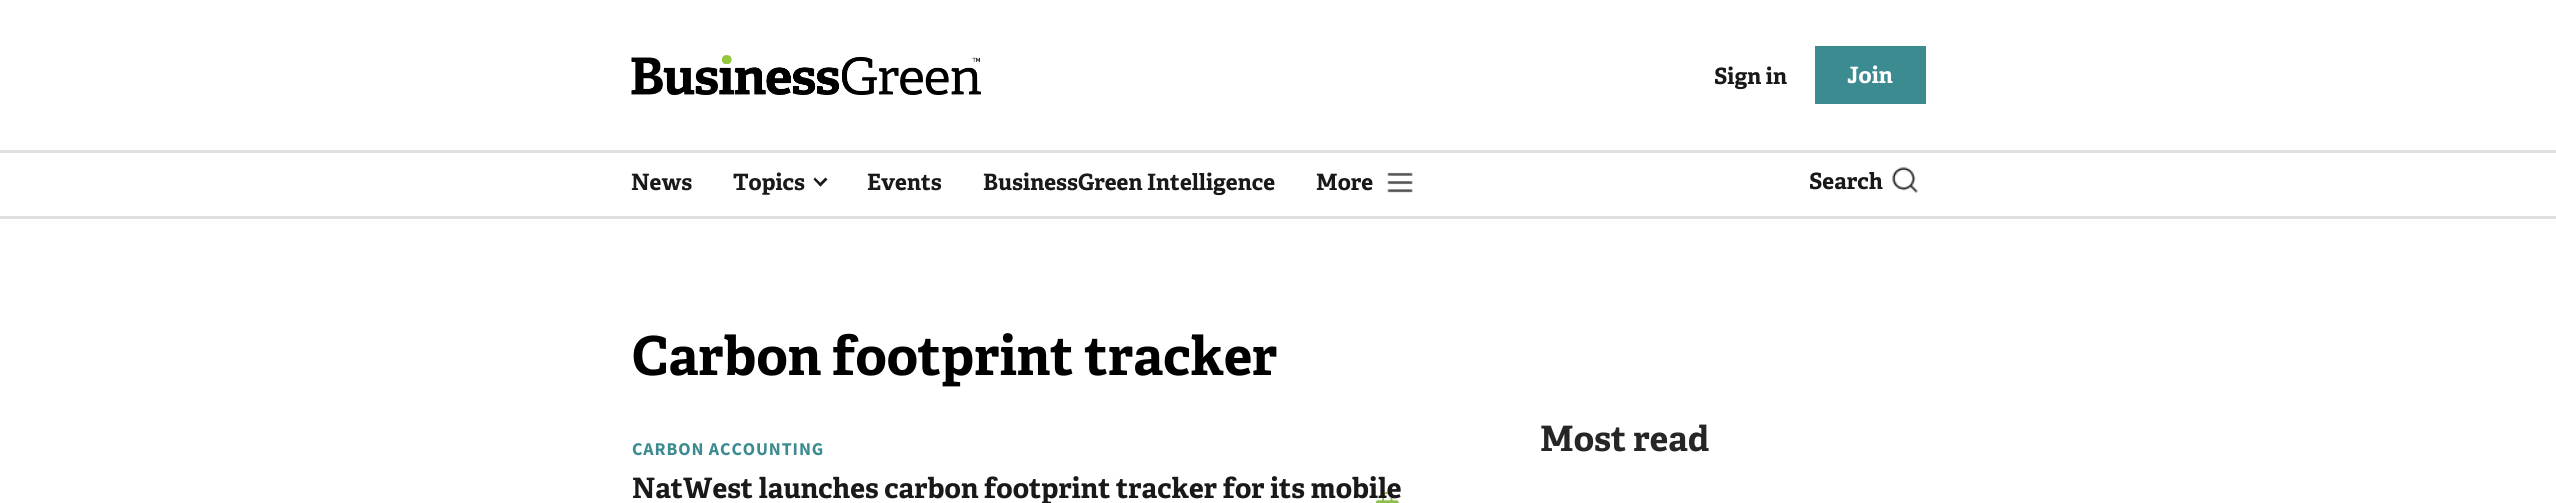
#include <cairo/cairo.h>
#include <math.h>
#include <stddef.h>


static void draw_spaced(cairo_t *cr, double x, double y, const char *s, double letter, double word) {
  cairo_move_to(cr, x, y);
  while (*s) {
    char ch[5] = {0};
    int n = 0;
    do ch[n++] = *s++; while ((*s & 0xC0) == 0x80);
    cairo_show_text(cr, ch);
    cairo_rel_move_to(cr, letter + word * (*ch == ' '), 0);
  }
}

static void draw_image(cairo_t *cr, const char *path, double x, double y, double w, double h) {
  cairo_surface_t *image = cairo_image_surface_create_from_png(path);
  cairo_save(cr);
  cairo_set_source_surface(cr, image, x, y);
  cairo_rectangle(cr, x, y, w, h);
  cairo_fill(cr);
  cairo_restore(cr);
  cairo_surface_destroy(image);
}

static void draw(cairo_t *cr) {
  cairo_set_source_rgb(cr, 1, 1, 1);
  cairo_paint(cr);
  draw_image(cr, "images/1.png", 631, 55, 350, 40);
  cairo_set_source_rgb(cr, 60 / 255.0, 139 / 255.0, 144 / 255.0);
  cairo_rectangle(cr, 1815, 46, 111, 58);
  cairo_fill(cr);
  cairo_set_source_rgb(cr, 224 / 255.0, 224 / 255.0, 224 / 255.0);
  cairo_rectangle(cr, 0, 150, 2556, 3);
  cairo_fill(cr);
  cairo_rectangle(cr, 0, 216, 2556, 3);
  cairo_fill(cr);
  cairo_set_source_rgb(cr, 26 / 255.0, 25 / 255.0, 25 / 255.0);
  cairo_new_path(cr);
  cairo_move_to(cr, 825.5, 177.5);
  cairo_line_to(cr, 827.5, 179.5);
  cairo_line_to(cr, 820.5, 186.5);
  cairo_line_to(cr, 818.5, 184.5);
  cairo_close_path(cr);
  cairo_fill(cr);
  cairo_new_path(cr);
  cairo_move_to(cr, 815, 177.5);
  cairo_line_to(cr, 822, 184.5);
  cairo_line_to(cr, 820.5, 186.5);
  cairo_line_to(cr, 813.5, 179.5);
  cairo_close_path(cr);
  cairo_fill(cr);
  draw_image(cr, "images/2.png", 1387, 172, 26, 21);
  draw_image(cr, "images/3.png", 1892, 167, 26, 26);
  draw_image(cr, "images/4.png", 1376, 491, 23, 12);
  cairo_select_font_face(cr, "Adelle", CAIRO_FONT_SLANT_NORMAL, CAIRO_FONT_WEIGHT_BOLD);
  cairo_set_font_size(cr, 22.5);
  cairo_move_to(cr, 1714, 84);
  cairo_show_text(cr, "Sign in");
  cairo_set_source_rgb(cr, 1, 1, 1);
  cairo_move_to(cr, 1847, 83);
  cairo_show_text(cr, "Join");
  cairo_set_source_rgb(cr, 26 / 255.0, 25 / 255.0, 25 / 255.0);
  cairo_move_to(cr, 631, 190);
  cairo_show_text(cr, "News");
  cairo_move_to(cr, 733, 190);
  cairo_show_text(cr, "Topics");
  cairo_move_to(cr, 867, 190);
  cairo_show_text(cr, "Events");
  cairo_move_to(cr, 983, 190);
  cairo_show_text(cr, "BusinessGreen Intelligence");
  cairo_move_to(cr, 1316, 190);
  cairo_show_text(cr, "More");
  cairo_move_to(cr, 1809, 189);
  cairo_show_text(cr, "Search");
  cairo_set_font_size(cr, 53.75);
  cairo_set_source_rgb(cr, 0, 0, 0);
  cairo_move_to(cr, 632, 375);
  cairo_show_text(cr, "Carbon footprint tracker");
  cairo_select_font_face(cr, "Source Sans Pro", CAIRO_FONT_SLANT_NORMAL, CAIRO_FONT_WEIGHT_BOLD);
  cairo_set_font_size(cr, 18);
  cairo_set_source_rgb(cr, 60 / 255.0, 139 / 255.0, 144 / 255.0);
  draw_spaced(cr, 632, 455, "CARBON ACCOUNTING", 0.9, 0);
  cairo_select_font_face(cr, "Adelle", CAIRO_FONT_SLANT_NORMAL, CAIRO_FONT_WEIGHT_BOLD);
  cairo_set_font_size(cr, 28.1);
  cairo_set_source_rgb(cr, 26 / 255.0, 25 / 255.0, 25 / 255.0);
  cairo_move_to(cr, 632, 498);
  cairo_show_text(cr, "NatWest launches carbon footprint tracker for its mobile");
  cairo_set_font_size(cr, 35);
  cairo_set_source_rgb(cr, 38 / 255.0, 38 / 255.0, 38 / 255.0);
  cairo_move_to(cr, 1540, 451);
  cairo_show_text(cr, "Most read");
}

int main(void) {
  cairo_surface_t *surface = cairo_image_surface_create(CAIRO_FORMAT_RGB24, 2556, 503);
  cairo_t *cr = cairo_create(surface);
  cairo_font_options_t *options = cairo_font_options_create();
  cairo_font_options_set_hint_metrics(options, CAIRO_HINT_METRICS_OFF);
  cairo_font_options_set_hint_style(options, CAIRO_HINT_STYLE_NONE);
  cairo_set_font_options(cr, options);
  cairo_set_miter_limit(cr, 4);
  draw(cr);
  cairo_surface_write_to_png(surface, "out.png");
  cairo_font_options_destroy(options);
  cairo_destroy(cr);
  cairo_surface_destroy(surface);
  return 0;
}
